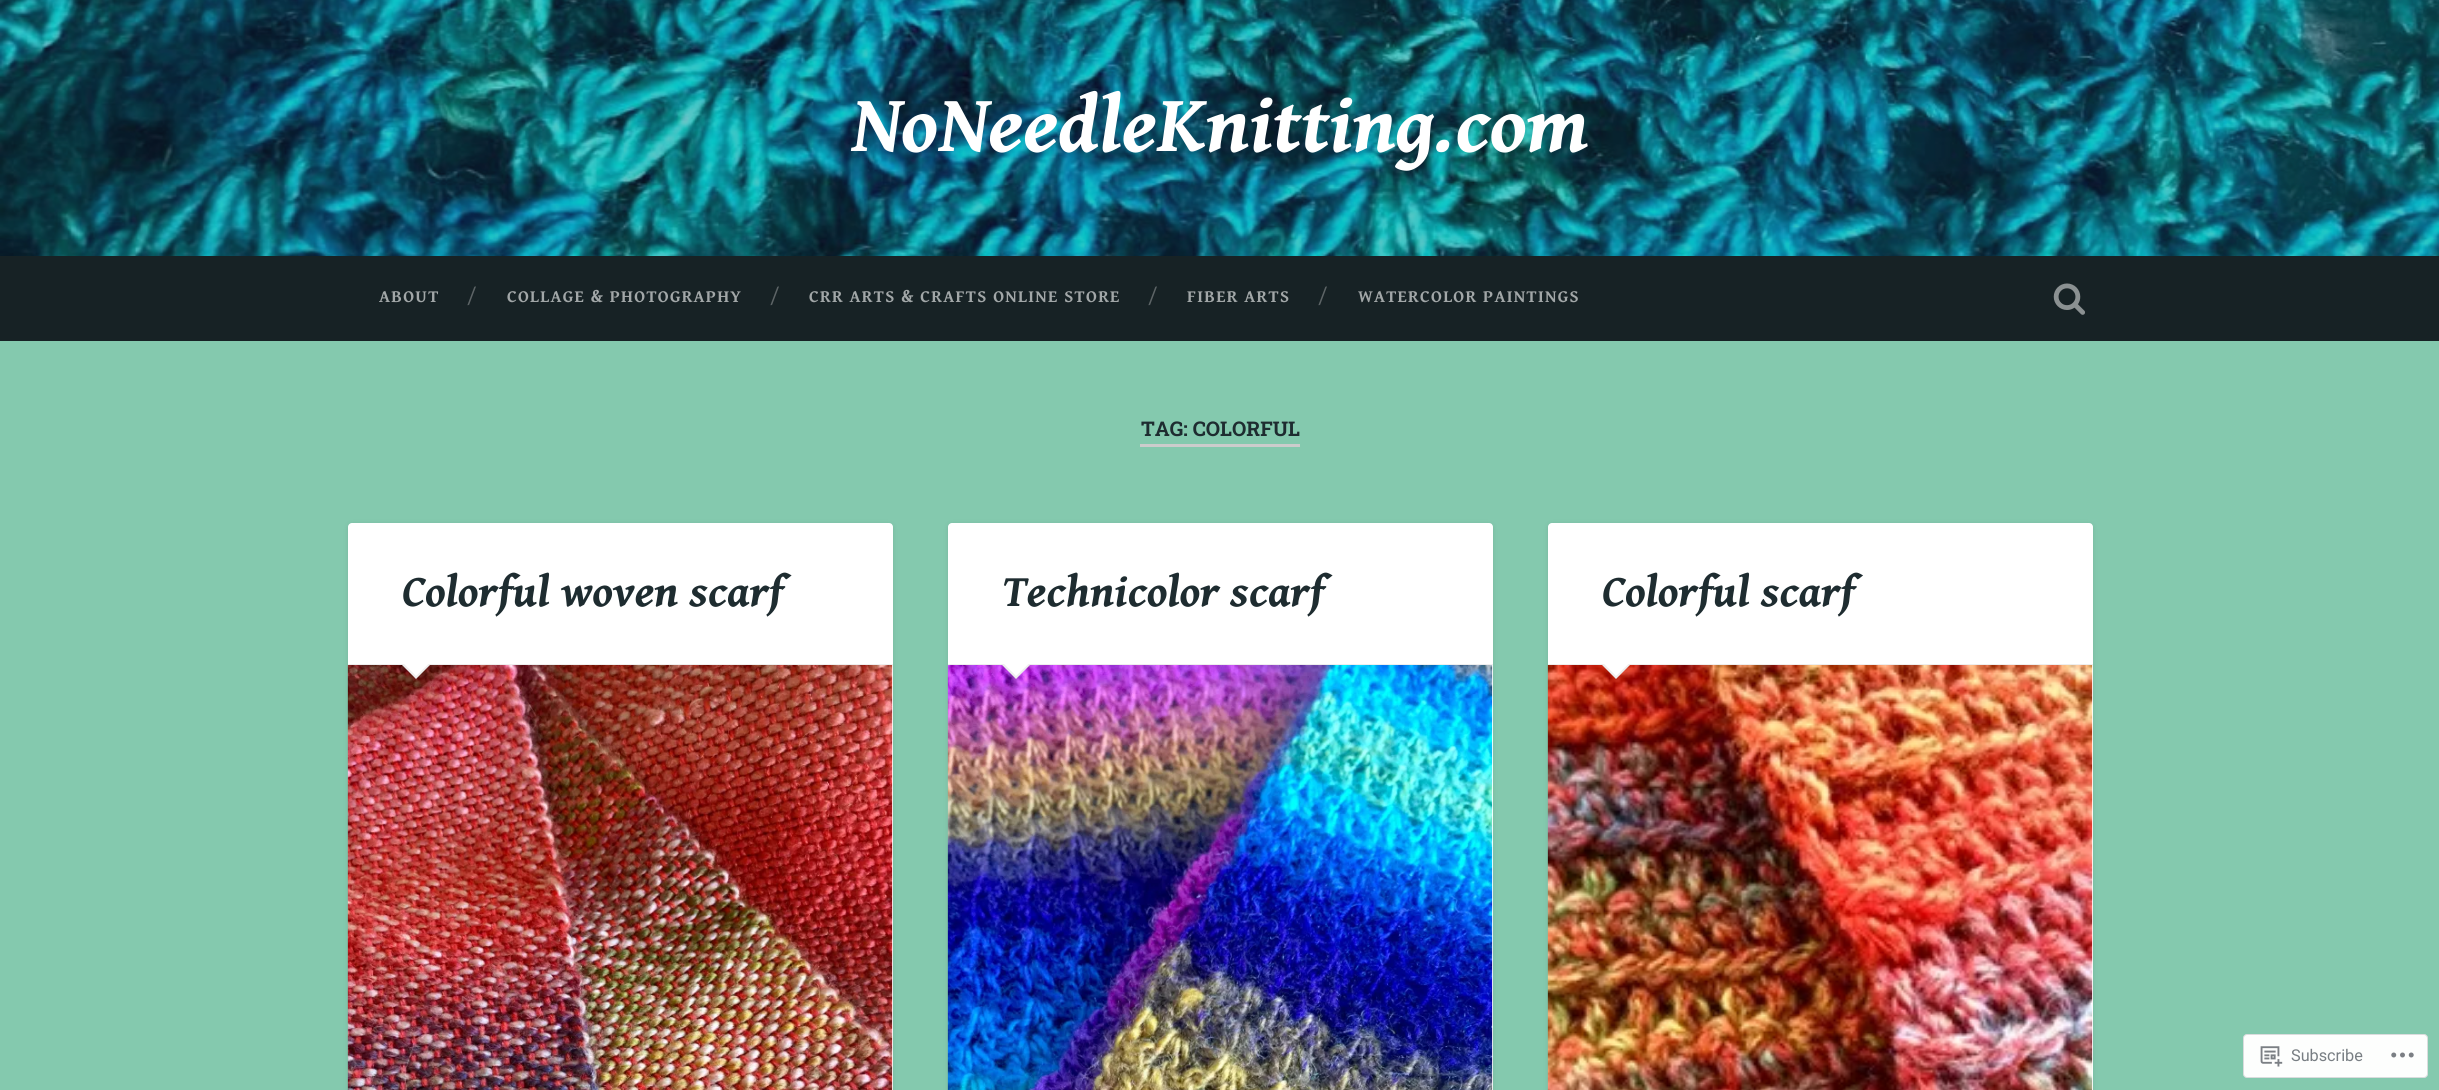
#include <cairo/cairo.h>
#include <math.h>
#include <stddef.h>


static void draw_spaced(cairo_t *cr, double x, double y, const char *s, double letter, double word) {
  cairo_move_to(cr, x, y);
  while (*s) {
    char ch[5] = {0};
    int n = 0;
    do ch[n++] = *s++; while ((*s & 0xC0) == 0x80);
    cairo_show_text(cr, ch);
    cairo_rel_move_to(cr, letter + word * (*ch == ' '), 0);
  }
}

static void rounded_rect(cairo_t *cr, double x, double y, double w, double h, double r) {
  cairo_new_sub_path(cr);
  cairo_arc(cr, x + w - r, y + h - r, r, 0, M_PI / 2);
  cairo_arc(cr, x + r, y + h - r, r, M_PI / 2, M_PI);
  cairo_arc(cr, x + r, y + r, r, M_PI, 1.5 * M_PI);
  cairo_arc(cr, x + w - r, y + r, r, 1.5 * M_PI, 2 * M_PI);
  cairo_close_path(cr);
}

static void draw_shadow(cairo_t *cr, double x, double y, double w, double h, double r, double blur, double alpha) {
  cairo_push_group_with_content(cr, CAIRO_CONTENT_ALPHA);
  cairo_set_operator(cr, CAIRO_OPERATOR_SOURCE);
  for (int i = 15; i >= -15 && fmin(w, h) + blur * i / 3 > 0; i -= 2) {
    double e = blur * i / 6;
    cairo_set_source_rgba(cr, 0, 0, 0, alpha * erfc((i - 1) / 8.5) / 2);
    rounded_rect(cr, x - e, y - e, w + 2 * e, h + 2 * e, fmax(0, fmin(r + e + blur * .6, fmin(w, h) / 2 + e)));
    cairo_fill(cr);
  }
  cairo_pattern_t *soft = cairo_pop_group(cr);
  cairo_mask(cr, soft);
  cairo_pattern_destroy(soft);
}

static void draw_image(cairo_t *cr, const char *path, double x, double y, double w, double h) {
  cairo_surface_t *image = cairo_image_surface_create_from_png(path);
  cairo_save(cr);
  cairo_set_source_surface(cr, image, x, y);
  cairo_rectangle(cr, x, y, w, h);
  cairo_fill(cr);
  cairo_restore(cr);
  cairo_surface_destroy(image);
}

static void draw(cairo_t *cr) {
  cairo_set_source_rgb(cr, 132 / 255.0, 201 / 255.0, 174 / 255.0);
  cairo_paint(cr);
  draw_image(cr, "images/1.png", 0, 0, 2439, 256);
  cairo_set_source_rgb(cr, 23 / 255.0, 34 / 255.0, 37 / 255.0);
  cairo_rectangle(cr, 0, 256, 2439, 85);
  cairo_fill(cr);
  draw_image(cr, "images/2.png", 2053, 283, 32, 32);
  cairo_set_source_rgb(cr, 204 / 255.0, 204 / 255.0, 204 / 255.0);
  cairo_rectangle(cr, 1140, 444, 160, 3);
  cairo_fill(cr);
  cairo_set_source_rgb(cr, 0, 0, 0);
  draw_shadow(cr, 348, 524, 545, 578, 4, 2.5, 0.1);
  cairo_set_source_rgb(cr, 1, 1, 1);
  rounded_rect(cr, 348, 523, 545, 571, 4);
  cairo_fill(cr);
  cairo_set_source_rgb(cr, 238 / 255.0, 238 / 255.0, 238 / 255.0);
  cairo_rectangle(cr, 348, 664, 545, 1);
  cairo_fill(cr);
  draw_image(cr, "images/3.png", 347, 665, 546, 425);
  cairo_new_path(cr);
  cairo_move_to(cr, 401, 664);
  cairo_line_to(cr, 431, 664);
  cairo_line_to(cr, 416, 679);
  cairo_close_path(cr);
  cairo_fill(cr);
  cairo_set_source_rgb(cr, 1, 1, 1);
  cairo_new_path(cr);
  cairo_move_to(cr, 402.5, 662.5);
  cairo_line_to(cr, 430, 662.5);
  cairo_line_to(cr, 416, 676);
  cairo_close_path(cr);
  cairo_fill(cr);
  cairo_set_source_rgb(cr, 0, 0, 0);
  draw_shadow(cr, 948, 524, 545, 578, 4, 2.5, 0.1);
  cairo_set_source_rgb(cr, 1, 1, 1);
  rounded_rect(cr, 948, 523, 545, 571, 4);
  cairo_fill(cr);
  cairo_set_source_rgb(cr, 238 / 255.0, 238 / 255.0, 238 / 255.0);
  cairo_rectangle(cr, 948, 664, 545, 1);
  cairo_fill(cr);
  draw_image(cr, "images/4.png", 947, 665, 546, 425);
  cairo_new_path(cr);
  cairo_move_to(cr, 1001, 664);
  cairo_line_to(cr, 1031, 664);
  cairo_line_to(cr, 1016, 679);
  cairo_close_path(cr);
  cairo_fill(cr);
  cairo_set_source_rgb(cr, 1, 1, 1);
  cairo_new_path(cr);
  cairo_move_to(cr, 1002.5, 662.5);
  cairo_line_to(cr, 1030, 662.5);
  cairo_line_to(cr, 1016, 676);
  cairo_close_path(cr);
  cairo_fill(cr);
  cairo_set_source_rgb(cr, 0, 0, 0);
  draw_shadow(cr, 1548, 524, 545, 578, 4, 2.5, 0.1);
  cairo_set_source_rgb(cr, 1, 1, 1);
  rounded_rect(cr, 1548, 523, 545, 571, 4);
  cairo_fill(cr);
  cairo_set_source_rgb(cr, 238 / 255.0, 238 / 255.0, 238 / 255.0);
  cairo_rectangle(cr, 1548, 664, 545, 1);
  cairo_fill(cr);
  draw_image(cr, "images/5.png", 1547, 665, 546, 425);
  cairo_new_path(cr);
  cairo_move_to(cr, 1601, 664);
  cairo_line_to(cr, 1631, 664);
  cairo_line_to(cr, 1616, 679);
  cairo_close_path(cr);
  cairo_fill(cr);
  cairo_set_source_rgb(cr, 1, 1, 1);
  cairo_new_path(cr);
  cairo_move_to(cr, 1602.5, 662.5);
  cairo_line_to(cr, 1630, 662.5);
  cairo_line_to(cr, 1616, 676);
  cairo_close_path(cr);
  cairo_fill(cr);
  cairo_set_source_rgb(cr, 253 / 255.0, 254 / 255.0, 253 / 255.0);
  rounded_rect(cr, 2243.5, 1034.5, 184, 43, 3.5);
  cairo_fill_preserve(cr);
  cairo_set_source_rgb(cr, 218 / 255.0, 220 / 255.0, 221 / 255.0);
  cairo_set_line_width(cr, 1);
  cairo_stroke(cr);
  draw_image(cr, "images/6.png", 2260, 1046, 23, 21);
  draw_image(cr, "images/7.png", 2391, 1052, 23, 6);
  cairo_select_font_face(cr, "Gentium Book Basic", CAIRO_FONT_SLANT_ITALIC, CAIRO_FONT_WEIGHT_BOLD);
  cairo_set_font_size(cr, 81);
  cairo_set_source_rgb(cr, 1, 1, 1);
  cairo_move_to(cr, 851, 151);
  cairo_show_text(cr, "NoNeedleKnitting.com");
  cairo_select_font_face(cr, "Gentium Book Basic", CAIRO_FONT_SLANT_NORMAL, CAIRO_FONT_WEIGHT_BOLD);
  cairo_set_font_size(cr, 17.25);
  cairo_set_source_rgb(cr, 162 / 255.0, 167 / 255.0, 168 / 255.0);
  draw_spaced(cr, 379, 302, "ABOUT", 1.25, 0);
  cairo_select_font_face(cr, "Gentium Book Basic", CAIRO_FONT_SLANT_NORMAL, CAIRO_FONT_WEIGHT_NORMAL);
  cairo_set_font_size(cr, 20);
  cairo_set_source_rgb(cr, 93 / 255.0, 100 / 255.0, 102 / 255.0);
  cairo_move_to(cr, 467, 302);
  cairo_show_text(cr, "/");
  cairo_select_font_face(cr, "Gentium Book Basic", CAIRO_FONT_SLANT_NORMAL, CAIRO_FONT_WEIGHT_BOLD);
  cairo_set_font_size(cr, 17.25);
  cairo_set_source_rgb(cr, 162 / 255.0, 167 / 255.0, 168 / 255.0);
  draw_spaced(cr, 507, 302, "COLLAGE & PHOTOGRAPHY", 1.25, 0);
  cairo_select_font_face(cr, "Gentium Book Basic", CAIRO_FONT_SLANT_NORMAL, CAIRO_FONT_WEIGHT_NORMAL);
  cairo_set_font_size(cr, 20);
  cairo_set_source_rgb(cr, 93 / 255.0, 100 / 255.0, 102 / 255.0);
  cairo_move_to(cr, 770, 302);
  cairo_show_text(cr, "/");
  cairo_select_font_face(cr, "Gentium Book Basic", CAIRO_FONT_SLANT_NORMAL, CAIRO_FONT_WEIGHT_BOLD);
  cairo_set_font_size(cr, 17.25);
  cairo_set_source_rgb(cr, 162 / 255.0, 167 / 255.0, 168 / 255.0);
  draw_spaced(cr, 809, 302, "CRR ARTS & CRAFTS ONLINE STORE", 1.25, 0);
  cairo_select_font_face(cr, "Gentium Book Basic", CAIRO_FONT_SLANT_NORMAL, CAIRO_FONT_WEIGHT_NORMAL);
  cairo_set_font_size(cr, 20);
  cairo_set_source_rgb(cr, 93 / 255.0, 100 / 255.0, 102 / 255.0);
  cairo_move_to(cr, 1148, 302);
  cairo_show_text(cr, "/");
  cairo_select_font_face(cr, "Gentium Book Basic", CAIRO_FONT_SLANT_NORMAL, CAIRO_FONT_WEIGHT_BOLD);
  cairo_set_font_size(cr, 17.25);
  cairo_set_source_rgb(cr, 162 / 255.0, 167 / 255.0, 168 / 255.0);
  draw_spaced(cr, 1187, 302, "FIBER ARTS", 1.25, 0);
  cairo_select_font_face(cr, "Gentium Book Basic", CAIRO_FONT_SLANT_NORMAL, CAIRO_FONT_WEIGHT_NORMAL);
  cairo_set_font_size(cr, 20);
  cairo_set_source_rgb(cr, 93 / 255.0, 100 / 255.0, 102 / 255.0);
  cairo_move_to(cr, 1318, 302);
  cairo_show_text(cr, "/");
  cairo_select_font_face(cr, "Gentium Book Basic", CAIRO_FONT_SLANT_NORMAL, CAIRO_FONT_WEIGHT_BOLD);
  cairo_set_font_size(cr, 17.25);
  cairo_set_source_rgb(cr, 162 / 255.0, 167 / 255.0, 168 / 255.0);
  draw_spaced(cr, 1358, 302, "WATERCOLOR PAINTINGS", 1.25, 0);
  cairo_select_font_face(cr, "Roboto Slab", CAIRO_FONT_SLANT_NORMAL, CAIRO_FONT_WEIGHT_BOLD);
  cairo_set_font_size(cr, 20.25);
  cairo_set_source_rgb(cr, 30 / 255.0, 44 / 255.0, 48 / 255.0);
  cairo_move_to(cr, 1141, 436);
  cairo_show_text(cr, "TAG: COLORFUL");
  cairo_select_font_face(cr, "Gentium Book Basic", CAIRO_FONT_SLANT_ITALIC, CAIRO_FONT_WEIGHT_BOLD);
  cairo_set_font_size(cr, 45);
  cairo_move_to(cr, 402, 606);
  cairo_show_text(cr, "Colorful woven scarf");
  cairo_move_to(cr, 1002, 606);
  cairo_show_text(cr, "Technicolor scarf");
  cairo_move_to(cr, 1602, 606);
  cairo_show_text(cr, "Colorful scarf");
  cairo_select_font_face(cr, "Roboto", CAIRO_FONT_SLANT_NORMAL, CAIRO_FONT_WEIGHT_NORMAL);
  cairo_set_font_size(cr, 16.25);
  cairo_set_source_rgb(cr, 120 / 255.0, 126 / 255.0, 131 / 255.0);
  cairo_move_to(cr, 2291, 1061);
  cairo_show_text(cr, "Subscribe");
}

int main(void) {
  cairo_surface_t *surface = cairo_image_surface_create(CAIRO_FORMAT_RGB24, 2439, 1090);
  cairo_t *cr = cairo_create(surface);
  cairo_font_options_t *options = cairo_font_options_create();
  cairo_font_options_set_hint_metrics(options, CAIRO_HINT_METRICS_OFF);
  cairo_font_options_set_hint_style(options, CAIRO_HINT_STYLE_NONE);
  cairo_set_font_options(cr, options);
  cairo_set_miter_limit(cr, 4);
  draw(cr);
  cairo_surface_write_to_png(surface, "out.png");
  cairo_font_options_destroy(options);
  cairo_destroy(cr);
  cairo_surface_destroy(surface);
  return 0;
}
